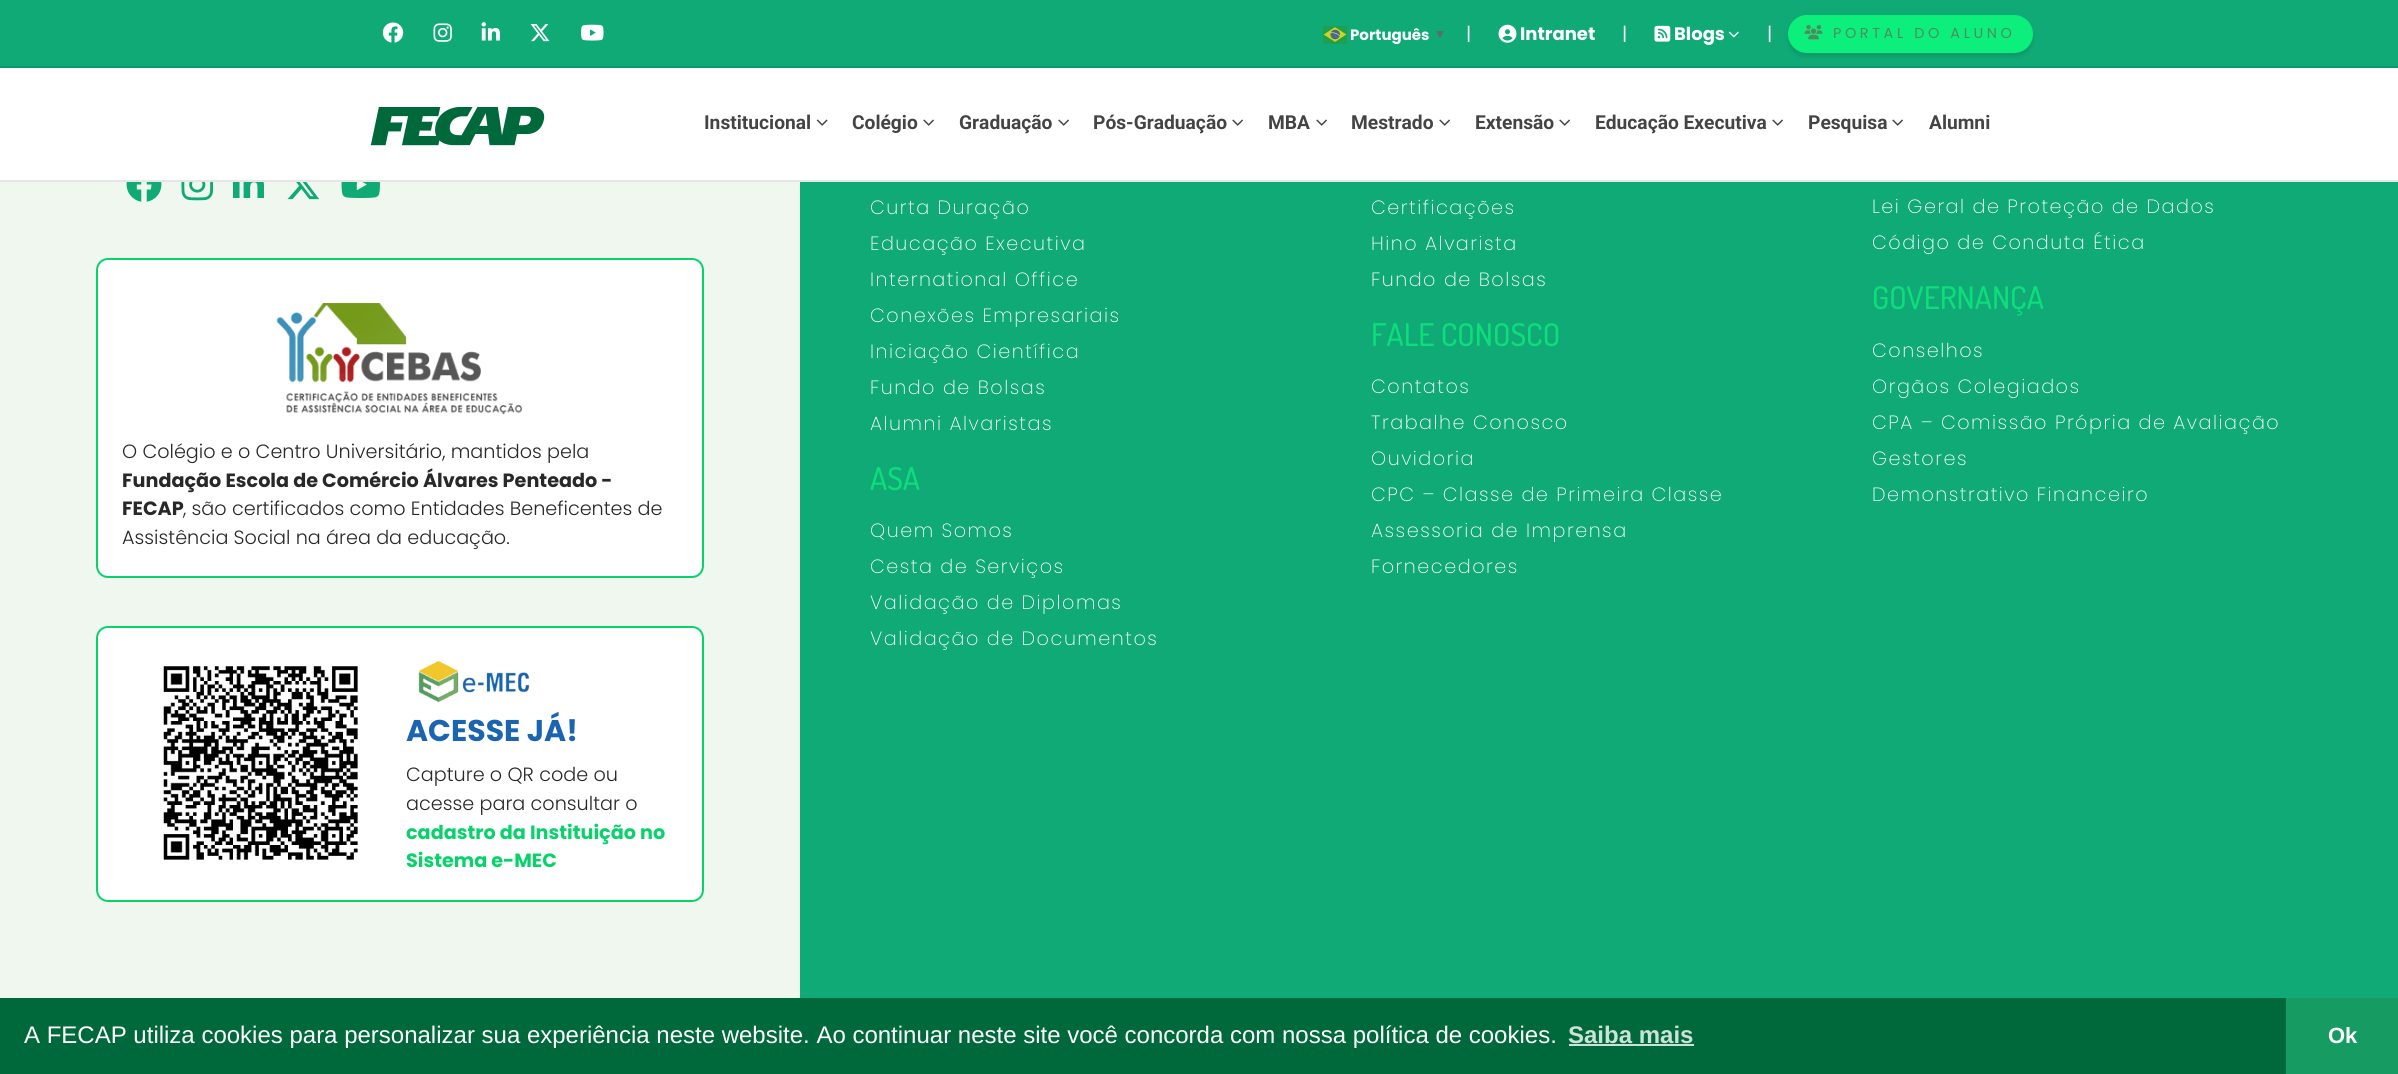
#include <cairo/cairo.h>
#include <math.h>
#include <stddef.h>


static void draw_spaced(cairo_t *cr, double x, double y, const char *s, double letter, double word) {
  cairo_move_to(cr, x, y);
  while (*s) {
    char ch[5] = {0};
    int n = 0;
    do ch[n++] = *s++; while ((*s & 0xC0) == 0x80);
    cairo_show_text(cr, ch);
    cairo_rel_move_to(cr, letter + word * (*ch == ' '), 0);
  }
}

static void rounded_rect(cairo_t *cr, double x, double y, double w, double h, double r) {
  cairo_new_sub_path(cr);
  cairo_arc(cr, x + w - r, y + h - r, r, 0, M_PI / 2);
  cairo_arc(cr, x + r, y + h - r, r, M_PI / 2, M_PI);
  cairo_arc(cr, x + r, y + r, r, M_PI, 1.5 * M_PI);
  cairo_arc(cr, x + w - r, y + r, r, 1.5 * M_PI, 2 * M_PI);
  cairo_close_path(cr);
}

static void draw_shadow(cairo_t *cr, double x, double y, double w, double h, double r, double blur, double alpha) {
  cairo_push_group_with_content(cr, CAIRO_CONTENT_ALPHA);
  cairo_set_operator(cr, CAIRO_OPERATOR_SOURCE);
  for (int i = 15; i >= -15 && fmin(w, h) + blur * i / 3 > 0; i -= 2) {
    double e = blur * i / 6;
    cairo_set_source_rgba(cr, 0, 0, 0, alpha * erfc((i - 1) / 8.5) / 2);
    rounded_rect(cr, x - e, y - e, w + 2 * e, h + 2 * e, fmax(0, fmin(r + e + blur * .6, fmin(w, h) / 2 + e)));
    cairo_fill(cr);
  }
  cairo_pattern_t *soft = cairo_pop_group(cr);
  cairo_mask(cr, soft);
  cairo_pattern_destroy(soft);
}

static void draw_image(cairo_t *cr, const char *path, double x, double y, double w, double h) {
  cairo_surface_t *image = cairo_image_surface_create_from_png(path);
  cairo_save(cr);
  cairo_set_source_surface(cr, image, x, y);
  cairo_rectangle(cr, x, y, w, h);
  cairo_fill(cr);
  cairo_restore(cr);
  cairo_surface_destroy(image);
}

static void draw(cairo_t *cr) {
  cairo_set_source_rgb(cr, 239 / 255.0, 247 / 255.0, 239 / 255.0);
  cairo_paint(cr);
  cairo_set_source_rgb(cr, 15 / 255.0, 170 / 255.0, 117 / 255.0);
  cairo_rectangle(cr, 0, 0, 2398, 66);
  cairo_fill(cr);
  cairo_set_source_rgb(cr, 14 / 255.0, 153 / 255.0, 105 / 255.0);
  cairo_rectangle(cr, 0, 66, 2398, 2);
  cairo_fill(cr);
  draw_image(cr, "images/1.png", 382, 22, 22, 21);
  draw_image(cr, "images/2.png", 433, 23, 19, 19);
  draw_image(cr, "images/3.png", 481, 22, 19, 19);
  draw_image(cr, "images/4.png", 530, 24, 20, 18);
  draw_image(cr, "images/5.png", 581, 24, 23, 17);
  draw_image(cr, "images/6.png", 1323, 26, 24, 18);
  draw_image(cr, "images/7.png", 1498, 24, 19, 19);
  draw_image(cr, "images/8.png", 1654, 25, 17, 17);
  draw_image(cr, "images/9.png", 1728, 31, 11, 7);
  cairo_set_source_rgb(cr, 0, 0, 0);
  draw_shadow(cr, 1788, 20, 245, 37, 18.5, 2, 0.1);
  cairo_set_source_rgb(cr, 13 / 255.0, 239 / 255.0, 125 / 255.0);
  rounded_rect(cr, 1789, 16, 243, 36, 18);
  cairo_fill_preserve(cr);
  cairo_stroke(cr);
  draw_image(cr, "images/10.png", 1804, 25, 19, 15);
  cairo_set_source_rgb(cr, 1, 1, 1);
  cairo_rectangle(cr, 0, 68, 2398, 112);
  cairo_fill(cr);
  cairo_set_source_rgb(cr, 230 / 255.0, 230 / 255.0, 230 / 255.0);
  cairo_rectangle(cr, 0, 180, 2398, 2);
  cairo_fill(cr);
  draw_image(cr, "images/11.png", 370, 107, 175, 39);
  draw_image(cr, "images/12.png", 816, 119, 12, 7);
  draw_image(cr, "images/13.png", 923, 119, 11, 7);
  draw_image(cr, "images/13.png", 1058, 119, 11, 7);
  draw_image(cr, "images/13.png", 1232, 119, 11, 7);
  draw_image(cr, "images/13.png", 1316, 119, 11, 7);
  draw_image(cr, "images/13.png", 1439, 119, 11, 7);
  draw_image(cr, "images/13.png", 1559, 119, 11, 7);
  draw_image(cr, "images/13.png", 1772, 119, 11, 7);
  draw_image(cr, "images/13.png", 1892, 119, 11, 7);
  draw_image(cr, "images/14.png", 126, 182, 36, 20);
  draw_image(cr, "images/15.png", 181, 182, 32, 19);
  draw_image(cr, "images/16.png", 233, 182, 31, 16);
  draw_image(cr, "images/17.png", 287, 182, 33, 18);
  draw_image(cr, "images/18.png", 341, 182, 39, 16);
  cairo_set_source_rgb(cr, 1, 1, 1);
  rounded_rect(cr, 97, 259, 606, 318, 11);
  cairo_fill_preserve(cr);
  cairo_set_source_rgb(cr, 8 / 255.0, 211 / 255.0, 106 / 255.0);
  cairo_stroke(cr);
  draw_image(cr, "images/19.png", 276, 303, 247, 112);
  cairo_set_source_rgb(cr, 1, 1, 1);
  rounded_rect(cr, 97, 627, 606, 274, 11);
  cairo_fill_preserve(cr);
  cairo_set_source_rgb(cr, 8 / 255.0, 211 / 255.0, 106 / 255.0);
  cairo_stroke(cr);
  draw_image(cr, "images/20.png", 163, 666, 195, 194);
  draw_image(cr, "images/21.png", 418, 660, 112, 43);
  cairo_set_source_rgb(cr, 15 / 255.0, 170 / 255.0, 117 / 255.0);
  cairo_rectangle(cr, 800, 182, 1598, 816);
  cairo_fill(cr);
  cairo_set_source_rgb(cr, 0, 105 / 255.0, 60 / 255.0);
  cairo_rectangle(cr, 0, 998, 2286, 76);
  cairo_fill(cr);
  cairo_set_source_rgb(cr, 204 / 255.0, 225 / 255.0, 216 / 255.0);
  cairo_rectangle(cr, 1569, 1044, 125, 2);
  cairo_fill(cr);
  cairo_set_source_rgb(cr, 22 / 255.0, 156 / 255.0, 99 / 255.0);
  cairo_rectangle(cr, 2286, 998, 112, 76);
  cairo_fill(cr);
  cairo_select_font_face(cr, "Poppins", CAIRO_FONT_SLANT_NORMAL, CAIRO_FONT_WEIGHT_BOLD);
  cairo_set_font_size(cr, 15);
  cairo_set_source_rgb(cr, 1, 1, 1);
  cairo_move_to(cr, 1350, 40);
  cairo_show_text(cr, "Português");
  cairo_select_font_face(cr, "Liberation Sans", CAIRO_FONT_SLANT_NORMAL, CAIRO_FONT_WEIGHT_BOLD);
  cairo_set_font_size(cr, 12);
  cairo_set_source_rgb(cr, 102 / 255.0, 102 / 255.0, 102 / 255.0);
  cairo_move_to(cr, 1434, 38);
  cairo_show_text(cr, "▼");
  cairo_select_font_face(cr, "Poppins", CAIRO_FONT_SLANT_NORMAL, CAIRO_FONT_WEIGHT_NORMAL);
  cairo_set_font_size(cr, 18);
  cairo_set_source_rgb(cr, 1, 1, 1);
  cairo_move_to(cr, 1466, 40);
  cairo_show_text(cr, "|");
  cairo_select_font_face(cr, "Poppins", CAIRO_FONT_SLANT_NORMAL, CAIRO_FONT_WEIGHT_BOLD);
  cairo_move_to(cr, 1520, 40);
  cairo_show_text(cr, "Intranet");
  cairo_select_font_face(cr, "Poppins", CAIRO_FONT_SLANT_NORMAL, CAIRO_FONT_WEIGHT_NORMAL);
  cairo_move_to(cr, 1622, 40);
  cairo_show_text(cr, "|");
  cairo_select_font_face(cr, "Poppins", CAIRO_FONT_SLANT_NORMAL, CAIRO_FONT_WEIGHT_BOLD);
  cairo_move_to(cr, 1674, 40);
  cairo_show_text(cr, "Blogs");
  cairo_select_font_face(cr, "Poppins", CAIRO_FONT_SLANT_NORMAL, CAIRO_FONT_WEIGHT_NORMAL);
  cairo_move_to(cr, 1767, 40);
  cairo_show_text(cr, "|");
  cairo_set_font_size(cr, 14.4);
  cairo_set_source_rgb(cr, 75 / 255.0, 141 / 255.0, 94 / 255.0);
  draw_spaced(cr, 1833, 38, "PORTAL DO ALUNO", 3.6, 0);
  cairo_select_font_face(cr, "Roboto", CAIRO_FONT_SLANT_NORMAL, CAIRO_FONT_WEIGHT_BOLD);
  cairo_set_font_size(cr, 19.2);
  cairo_set_source_rgb(cr, 68 / 255.0, 68 / 255.0, 68 / 255.0);
  cairo_move_to(cr, 704, 129);
  cairo_show_text(cr, "Institucional");
  cairo_move_to(cr, 852, 129);
  cairo_show_text(cr, "Colégio");
  cairo_move_to(cr, 959, 129);
  cairo_show_text(cr, "Graduação");
  cairo_move_to(cr, 1093, 129);
  cairo_show_text(cr, "Pós-Graduação");
  cairo_move_to(cr, 1268, 129);
  cairo_show_text(cr, "MBA");
  cairo_move_to(cr, 1351, 129);
  cairo_show_text(cr, "Mestrado");
  cairo_move_to(cr, 1475, 129);
  cairo_show_text(cr, "Extensão");
  cairo_move_to(cr, 1595, 129);
  cairo_show_text(cr, "Educação Executiva");
  cairo_move_to(cr, 1808, 129);
  cairo_show_text(cr, "Pesquisa");
  cairo_move_to(cr, 1929, 129);
  cairo_show_text(cr, "Alumni");
  cairo_select_font_face(cr, "Poppins Light", CAIRO_FONT_SLANT_NORMAL, CAIRO_FONT_WEIGHT_NORMAL);
  cairo_set_source_rgb(cr, 40 / 255.0, 40 / 255.0, 40 / 255.0);
  cairo_move_to(cr, 122, 458);
  cairo_show_text(cr, "O Colégio e o Centro Universitário, mantidos pela");
  cairo_select_font_face(cr, "Poppins", CAIRO_FONT_SLANT_NORMAL, CAIRO_FONT_WEIGHT_BOLD);
  cairo_move_to(cr, 122, 487);
  cairo_show_text(cr, "Fundação Escola de Comércio Álvares Penteado -");
  cairo_move_to(cr, 122, 515);
  cairo_show_text(cr, "FECAP");
  cairo_select_font_face(cr, "Poppins Light", CAIRO_FONT_SLANT_NORMAL, CAIRO_FONT_WEIGHT_NORMAL);
  cairo_move_to(cr, 183, 515);
  cairo_show_text(cr, ", são certificados como Entidades Beneficentes de");
  cairo_move_to(cr, 122, 544);
  cairo_show_text(cr, "Assistência Social na área da educação.");
  cairo_select_font_face(cr, "Poppins", CAIRO_FONT_SLANT_NORMAL, CAIRO_FONT_WEIGHT_BOLD);
  cairo_set_font_size(cr, 30);
  cairo_set_source_rgb(cr, 27 / 255.0, 101 / 255.0, 176 / 255.0);
  cairo_move_to(cr, 406, 741);
  cairo_show_text(cr, "ACESSE JÁ!");
  cairo_select_font_face(cr, "Poppins Light", CAIRO_FONT_SLANT_NORMAL, CAIRO_FONT_WEIGHT_NORMAL);
  cairo_set_font_size(cr, 19.2);
  cairo_set_source_rgb(cr, 40 / 255.0, 40 / 255.0, 40 / 255.0);
  cairo_move_to(cr, 406, 781);
  cairo_show_text(cr, "Capture o QR code ou");
  cairo_move_to(cr, 406, 810);
  cairo_show_text(cr, "acesse para consultar o");
  cairo_select_font_face(cr, "Poppins", CAIRO_FONT_SLANT_NORMAL, CAIRO_FONT_WEIGHT_BOLD);
  cairo_set_source_rgb(cr, 8 / 255.0, 211 / 255.0, 106 / 255.0);
  cairo_move_to(cr, 406, 839);
  cairo_show_text(cr, "cadastro da Instituição no");
  cairo_move_to(cr, 406, 867);
  cairo_show_text(cr, "Sistema e-MEC");
  cairo_select_font_face(cr, "Poppins ExtraLight", CAIRO_FONT_SLANT_NORMAL, CAIRO_FONT_WEIGHT_NORMAL);
  cairo_set_source_rgb(cr, 1, 1, 1);
  draw_spaced(cr, 870, 214, "Curta Duração", 1.5, 0);
  draw_spaced(cr, 870, 250, "Educação Executiva", 1.5, 0);
  draw_spaced(cr, 870, 286, "International Office", 1.5, 0);
  draw_spaced(cr, 870, 322, "Conexões Empresariais", 1.5, 0);
  draw_spaced(cr, 870, 358, "Iniciação Científica", 1.5, 0);
  draw_spaced(cr, 870, 394, "Fundo de Bolsas", 1.5, 0);
  draw_spaced(cr, 870, 430, "Alumni Alvaristas", 1.5, 0);
  cairo_select_font_face(cr, "Dosis Medium", CAIRO_FONT_SLANT_NORMAL, CAIRO_FONT_WEIGHT_NORMAL);
  cairo_set_font_size(cr, 31.25);
  cairo_set_source_rgb(cr, 14 / 255.0, 221 / 255.0, 123 / 255.0);
  cairo_move_to(cr, 870, 490);
  cairo_show_text(cr, "ASA");
  cairo_select_font_face(cr, "Poppins ExtraLight", CAIRO_FONT_SLANT_NORMAL, CAIRO_FONT_WEIGHT_NORMAL);
  cairo_set_font_size(cr, 19.2);
  cairo_set_source_rgb(cr, 1, 1, 1);
  draw_spaced(cr, 870, 537, "Quem Somos", 1.5, 0);
  draw_spaced(cr, 870, 573, "Cesta de Serviços", 1.5, 0);
  draw_spaced(cr, 870, 609, "Validação de Diplomas", 1.5, 0);
  draw_spaced(cr, 870, 645, "Validação de Documentos", 1.5, 0);
  draw_spaced(cr, 1371, 214, "Certificações", 1.5, 0);
  draw_spaced(cr, 1371, 250, "Hino Alvarista", 1.5, 0);
  draw_spaced(cr, 1371, 286, "Fundo de Bolsas", 1.5, 0);
  cairo_select_font_face(cr, "Dosis Medium", CAIRO_FONT_SLANT_NORMAL, CAIRO_FONT_WEIGHT_NORMAL);
  cairo_set_font_size(cr, 31.25);
  cairo_set_source_rgb(cr, 14 / 255.0, 221 / 255.0, 123 / 255.0);
  cairo_move_to(cr, 1371, 346);
  cairo_show_text(cr, "FALE CONOSCO");
  cairo_select_font_face(cr, "Poppins ExtraLight", CAIRO_FONT_SLANT_NORMAL, CAIRO_FONT_WEIGHT_NORMAL);
  cairo_set_font_size(cr, 19.2);
  cairo_set_source_rgb(cr, 1, 1, 1);
  draw_spaced(cr, 1371, 393, "Contatos", 1.5, 0);
  draw_spaced(cr, 1371, 429, "Trabalhe Conosco", 1.5, 0);
  draw_spaced(cr, 1371, 465, "Ouvidoria", 1.5, 0);
  draw_spaced(cr, 1371, 501, "CPC – Classe de Primeira Classe", 1.5, 0);
  draw_spaced(cr, 1371, 537, "Assessoria de Imprensa", 1.5, 0);
  draw_spaced(cr, 1371, 573, "Fornecedores", 1.5, 0);
  draw_spaced(cr, 1872, 213, "Lei Geral de Proteção de Dados", 1.5, 0);
  draw_spaced(cr, 1872, 249, "Código de Conduta Ética", 1.5, 0);
  cairo_select_font_face(cr, "Dosis Medium", CAIRO_FONT_SLANT_NORMAL, CAIRO_FONT_WEIGHT_NORMAL);
  cairo_set_font_size(cr, 31.25);
  cairo_set_source_rgb(cr, 14 / 255.0, 221 / 255.0, 123 / 255.0);
  cairo_move_to(cr, 1872, 309);
  cairo_show_text(cr, "GOVERNANÇA");
  cairo_select_font_face(cr, "Poppins ExtraLight", CAIRO_FONT_SLANT_NORMAL, CAIRO_FONT_WEIGHT_NORMAL);
  cairo_set_font_size(cr, 19.2);
  cairo_set_source_rgb(cr, 1, 1, 1);
  draw_spaced(cr, 1872, 357, "Conselhos", 1.5, 0);
  draw_spaced(cr, 1872, 393, "Orgãos Colegiados", 1.5, 0);
  draw_spaced(cr, 1872, 429, "CPA – Comissão Própria de Avaliação", 1.5, 0);
  draw_spaced(cr, 1872, 465, "Gestores", 1.5, 0);
  draw_spaced(cr, 1872, 501, "Demonstrativo Financeiro", 1.5, 0);
  cairo_select_font_face(cr, "Liberation Sans", CAIRO_FONT_SLANT_NORMAL, CAIRO_FONT_WEIGHT_NORMAL);
  cairo_set_font_size(cr, 24);
  cairo_move_to(cr, 24, 1043);
  cairo_show_text(cr, "A FECAP utiliza cookies para personalizar sua experiência neste website. Ao continuar neste site você concorda com nossa política de cookies.");
  cairo_select_font_face(cr, "Liberation Sans", CAIRO_FONT_SLANT_NORMAL, CAIRO_FONT_WEIGHT_BOLD);
  cairo_set_source_rgb(cr, 204 / 255.0, 225 / 255.0, 216 / 255.0);
  cairo_move_to(cr, 1568, 1043);
  cairo_show_text(cr, "Saiba mais");
  cairo_set_font_size(cr, 22);
  cairo_set_source_rgb(cr, 1, 1, 1);
  cairo_move_to(cr, 2328, 1043);
  cairo_show_text(cr, "Ok");
}

int main(void) {
  cairo_surface_t *surface = cairo_image_surface_create(CAIRO_FORMAT_RGB24, 2398, 1074);
  cairo_t *cr = cairo_create(surface);
  cairo_font_options_t *options = cairo_font_options_create();
  cairo_font_options_set_hint_metrics(options, CAIRO_HINT_METRICS_OFF);
  cairo_font_options_set_hint_style(options, CAIRO_HINT_STYLE_NONE);
  cairo_set_font_options(cr, options);
  cairo_set_miter_limit(cr, 4);
  draw(cr);
  cairo_surface_write_to_png(surface, "out.png");
  cairo_font_options_destroy(options);
  cairo_destroy(cr);
  cairo_surface_destroy(surface);
  return 0;
}
